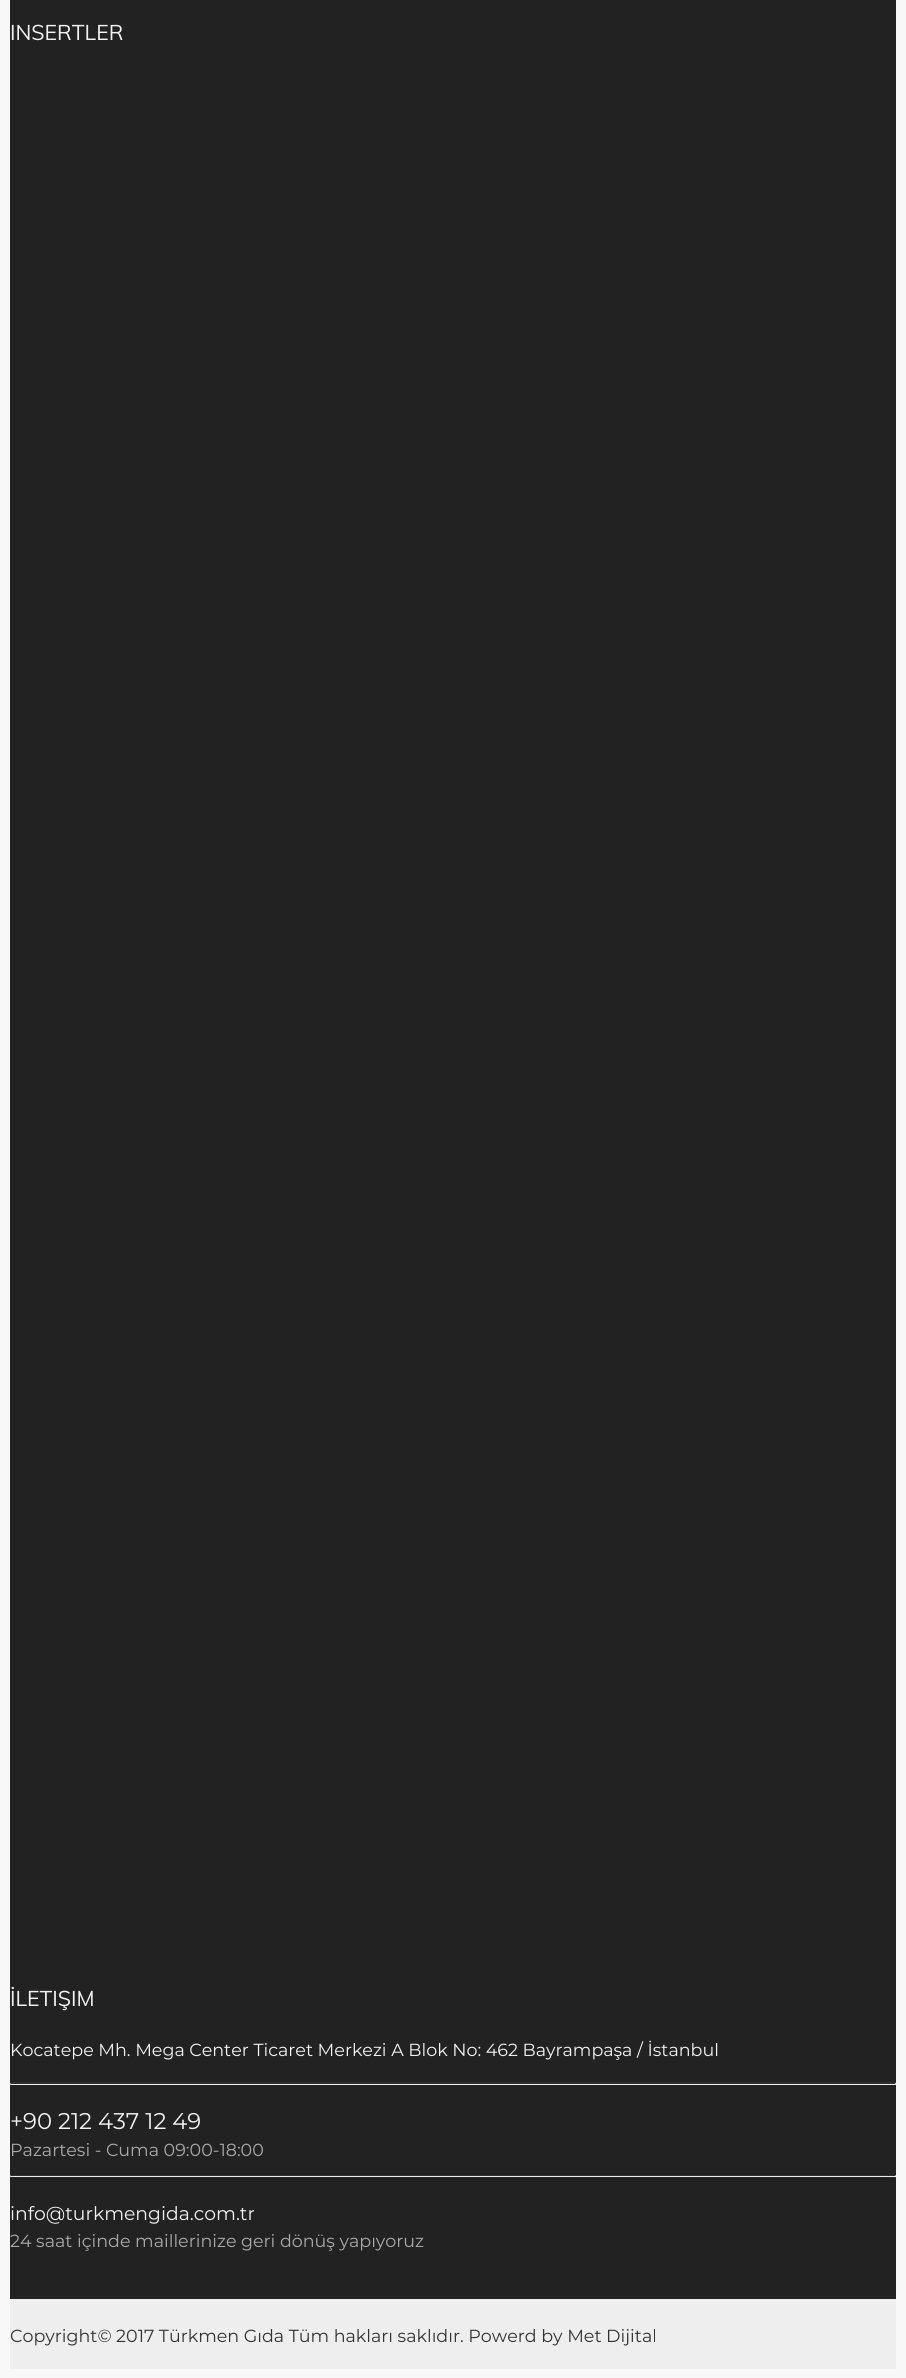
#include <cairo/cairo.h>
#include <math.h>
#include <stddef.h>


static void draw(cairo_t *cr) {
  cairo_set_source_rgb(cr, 248 / 255.0, 248 / 255.0, 248 / 255.0);
  cairo_paint(cr);
  cairo_set_source_rgb(cr, 34 / 255.0, 34 / 255.0, 34 / 255.0);
  cairo_rectangle(cr, 10, 0, 886, 2299);
  cairo_fill(cr);
  cairo_set_source_rgb(cr, 47 / 255.0, 47 / 255.0, 47 / 255.0);
  cairo_new_path(cr);
  cairo_move_to(cr, 10, 2082);
  cairo_line_to(cr, 896, 2082);
  cairo_line_to(cr, 895, 2084);
  cairo_line_to(cr, 11, 2084);
  cairo_close_path(cr);
  cairo_fill(cr);
  cairo_set_source_rgb(cr, 238 / 255.0, 238 / 255.0, 238 / 255.0);
  cairo_new_path(cr);
  cairo_move_to(cr, 896, 2082.5);
  cairo_line_to(cr, 896, 2085);
  cairo_line_to(cr, 895, 2084);
  cairo_close_path(cr);
  cairo_fill(cr);
  cairo_rectangle(cr, 10, 2084, 886, 1);
  cairo_fill(cr);
  cairo_set_source_rgb(cr, 159 / 255.0, 159 / 255.0, 159 / 255.0);
  cairo_new_path(cr);
  cairo_move_to(cr, 10, 2085);
  cairo_line_to(cr, 10, 2082.5);
  cairo_line_to(cr, 11, 2084);
  cairo_close_path(cr);
  cairo_fill(cr);
  cairo_set_source_rgb(cr, 47 / 255.0, 47 / 255.0, 47 / 255.0);
  cairo_new_path(cr);
  cairo_move_to(cr, 10, 2175);
  cairo_line_to(cr, 896, 2175);
  cairo_line_to(cr, 895, 2176);
  cairo_line_to(cr, 11, 2176);
  cairo_close_path(cr);
  cairo_fill(cr);
  cairo_set_source_rgb(cr, 238 / 255.0, 238 / 255.0, 238 / 255.0);
  cairo_new_path(cr);
  cairo_move_to(cr, 896, 2175);
  cairo_line_to(cr, 896, 2177.5);
  cairo_line_to(cr, 895, 2176);
  cairo_close_path(cr);
  cairo_fill(cr);
  cairo_rectangle(cr, 10, 2176, 886, 1);
  cairo_fill(cr);
  cairo_set_source_rgb(cr, 159 / 255.0, 159 / 255.0, 159 / 255.0);
  cairo_new_path(cr);
  cairo_move_to(cr, 10, 2177.5);
  cairo_line_to(cr, 10, 2175);
  cairo_line_to(cr, 11, 2176);
  cairo_close_path(cr);
  cairo_fill(cr);
  cairo_set_source_rgb(cr, 238 / 255.0, 238 / 255.0, 238 / 255.0);
  cairo_rectangle(cr, 10, 2299, 886, 70);
  cairo_fill(cr);
  cairo_select_font_face(cr, "Muli", CAIRO_FONT_SLANT_NORMAL, CAIRO_FONT_WEIGHT_NORMAL);
  cairo_set_font_size(cr, 21.25);
  cairo_set_source_rgb(cr, 242 / 255.0, 242 / 255.0, 242 / 255.0);
  cairo_move_to(cr, 10, 40);
  cairo_show_text(cr, "INSERTLER");
  cairo_move_to(cr, 10, 2006);
  cairo_show_text(cr, "İLETIŞIM");
  cairo_select_font_face(cr, "Montserrat", CAIRO_FONT_SLANT_NORMAL, CAIRO_FONT_WEIGHT_NORMAL);
  cairo_set_font_size(cr, 17.5);
  cairo_move_to(cr, 10, 2056);
  cairo_show_text(cr, "Kocatepe Mh. Mega Center Ticaret Merkezi A Blok No: 462 Bayrampaşa / İstanbul");
  cairo_set_font_size(cr, 22.75);
  cairo_move_to(cr, 10, 2129);
  cairo_show_text(cr, "+90 212 437 12 49");
  cairo_set_font_size(cr, 17.5);
  cairo_set_source_rgb(cr, 169 / 255.0, 169 / 255.0, 169 / 255.0);
  cairo_move_to(cr, 10, 2156);
  cairo_show_text(cr, "Pazartesi - Cuma 09:00-18:00");
  cairo_set_font_size(cr, 18.75);
  cairo_set_source_rgb(cr, 242 / 255.0, 242 / 255.0, 242 / 255.0);
  cairo_move_to(cr, 10, 2220);
  cairo_show_text(cr, "info@turkmengida.com.tr");
  cairo_set_font_size(cr, 17.5);
  cairo_set_source_rgb(cr, 169 / 255.0, 169 / 255.0, 169 / 255.0);
  cairo_move_to(cr, 10, 2247);
  cairo_show_text(cr, "24 saat içinde maillerinize geri dönüş yapıyoruz");
  cairo_set_source_rgb(cr, 51 / 255.0, 51 / 255.0, 51 / 255.0);
  cairo_move_to(cr, 10, 2342);
  cairo_show_text(cr, "Copyright© 2017 Türkmen Gıda Tüm hakları saklıdır. Powerd by Met Dijital");
}

int main(void) {
  cairo_surface_t *surface = cairo_image_surface_create(CAIRO_FORMAT_RGB24, 906, 2378);
  cairo_t *cr = cairo_create(surface);
  cairo_font_options_t *options = cairo_font_options_create();
  cairo_font_options_set_hint_metrics(options, CAIRO_HINT_METRICS_OFF);
  cairo_font_options_set_hint_style(options, CAIRO_HINT_STYLE_NONE);
  cairo_set_font_options(cr, options);
  cairo_set_miter_limit(cr, 4);
  draw(cr);
  cairo_surface_write_to_png(surface, "out.png");
  cairo_font_options_destroy(options);
  cairo_destroy(cr);
  cairo_surface_destroy(surface);
  return 0;
}
